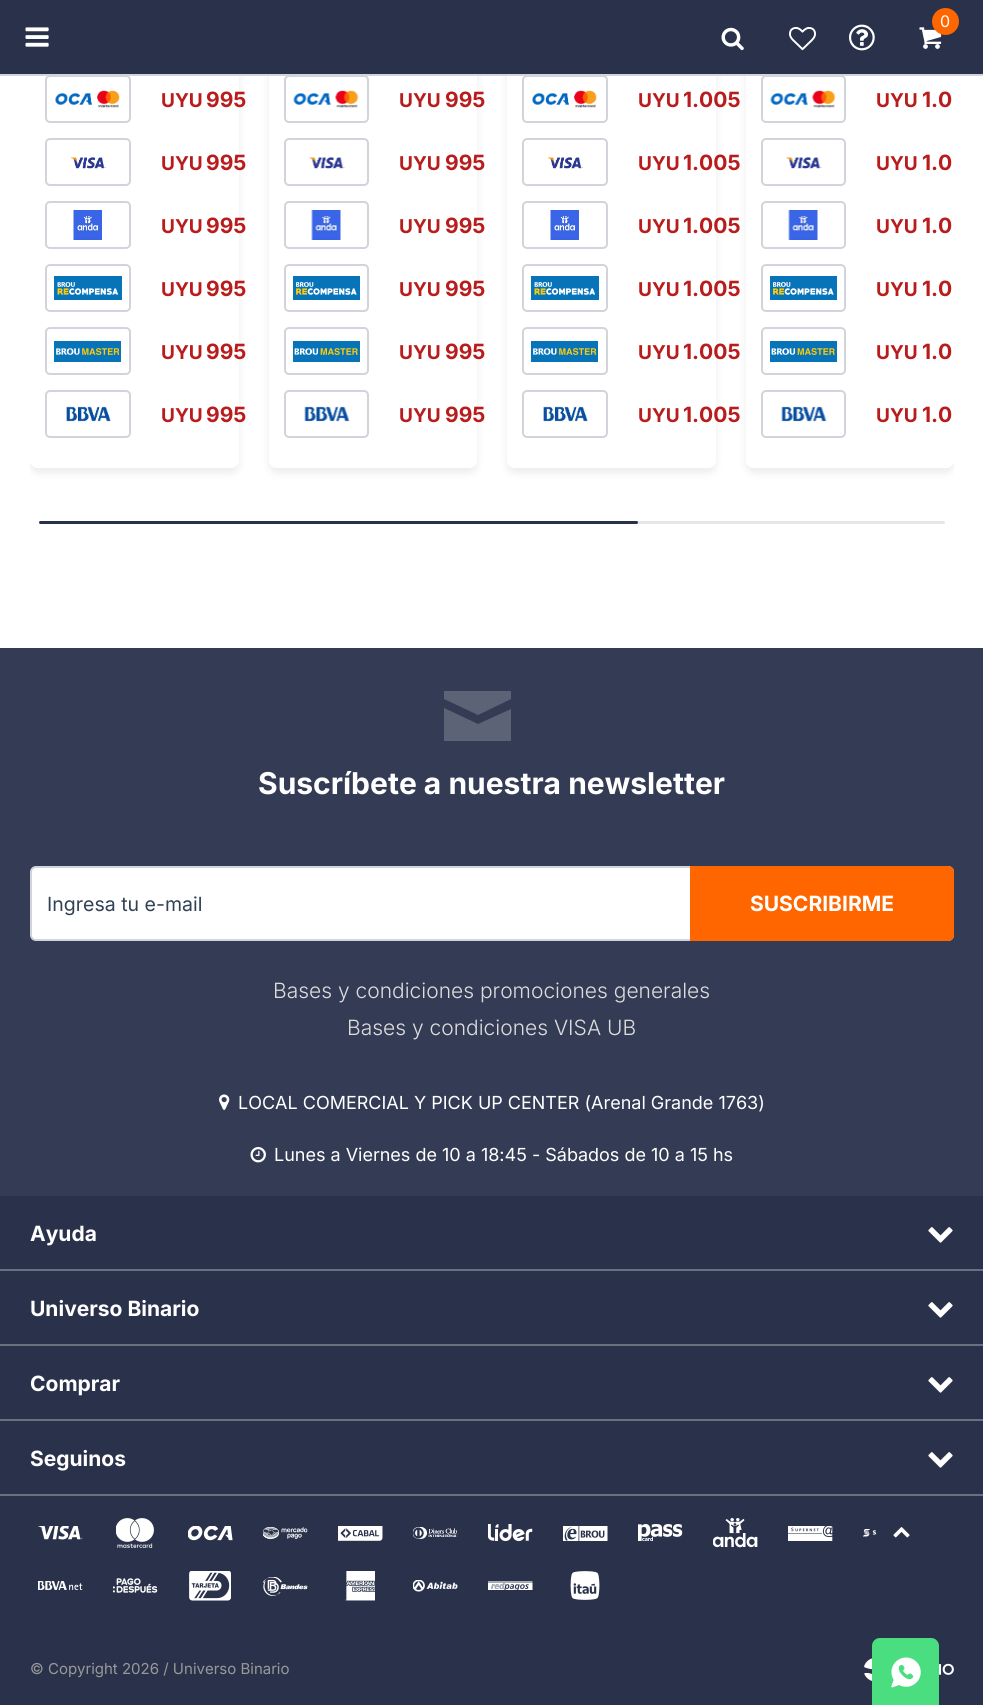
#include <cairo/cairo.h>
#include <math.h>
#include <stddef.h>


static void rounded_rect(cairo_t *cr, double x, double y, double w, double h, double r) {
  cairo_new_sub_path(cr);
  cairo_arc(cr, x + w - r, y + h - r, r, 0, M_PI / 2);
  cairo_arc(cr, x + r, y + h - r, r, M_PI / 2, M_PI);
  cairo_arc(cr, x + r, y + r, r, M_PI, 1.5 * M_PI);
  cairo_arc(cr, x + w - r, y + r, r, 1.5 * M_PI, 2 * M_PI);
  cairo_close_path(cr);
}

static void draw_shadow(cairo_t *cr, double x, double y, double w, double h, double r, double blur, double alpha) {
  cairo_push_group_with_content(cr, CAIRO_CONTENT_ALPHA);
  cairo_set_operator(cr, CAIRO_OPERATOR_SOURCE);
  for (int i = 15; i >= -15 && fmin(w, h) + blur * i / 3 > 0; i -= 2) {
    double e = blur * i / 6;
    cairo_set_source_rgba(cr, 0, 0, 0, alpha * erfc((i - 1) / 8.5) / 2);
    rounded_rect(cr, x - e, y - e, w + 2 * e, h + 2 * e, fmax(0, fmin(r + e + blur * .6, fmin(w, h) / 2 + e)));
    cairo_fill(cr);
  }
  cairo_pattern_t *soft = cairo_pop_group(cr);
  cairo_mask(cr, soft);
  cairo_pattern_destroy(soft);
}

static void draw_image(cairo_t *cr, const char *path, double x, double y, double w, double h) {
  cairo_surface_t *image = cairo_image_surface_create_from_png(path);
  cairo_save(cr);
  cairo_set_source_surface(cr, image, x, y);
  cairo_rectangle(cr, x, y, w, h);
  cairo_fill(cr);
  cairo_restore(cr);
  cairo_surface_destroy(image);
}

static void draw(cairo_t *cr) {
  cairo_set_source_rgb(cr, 1, 1, 1);
  cairo_paint(cr);
  cairo_save(cr);
  cairo_rectangle(cr, 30, 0, 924, 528);
  cairo_clip(cr);
  cairo_set_fill_rule(cr, CAIRO_FILL_RULE_EVEN_ODD);
  cairo_new_path(cr);
  cairo_move_to(cr, 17, 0);
  cairo_line_to(cr, 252, 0);
  cairo_line_to(cr, 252, 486);
  cairo_line_to(cr, 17, 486);
  cairo_close_path(cr);
  cairo_move_to(cr, 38, -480);
  cairo_line_to(cr, 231, -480);
  cairo_curve_to(cr, 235.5, -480, 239, -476.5, 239, -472);
  cairo_line_to(cr, 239, 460);
  cairo_curve_to(cr, 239, 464.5, 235.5, 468, 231, 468);
  cairo_line_to(cr, 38, 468);
  cairo_curve_to(cr, 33.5, 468, 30, 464.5, 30, 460);
  cairo_line_to(cr, 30, -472);
  cairo_curve_to(cr, 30, -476.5, 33.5, -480, 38, -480);
  cairo_close_path(cr);
  cairo_clip(cr);
  cairo_set_source_rgb(cr, 68 / 255.0, 68 / 255.0, 68 / 255.0);
  draw_shadow(cr, 30, -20, 209, 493, 8, 4, 0.1);
  cairo_restore(cr);
  cairo_save(cr);
  cairo_set_fill_rule(cr, CAIRO_FILL_RULE_EVEN_ODD);
  cairo_new_path(cr);
  cairo_move_to(cr, 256, 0);
  cairo_line_to(cr, 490, 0);
  cairo_line_to(cr, 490, 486);
  cairo_line_to(cr, 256, 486);
  cairo_close_path(cr);
  cairo_move_to(cr, 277, -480);
  cairo_line_to(cr, 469, -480);
  cairo_curve_to(cr, 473.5, -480, 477, -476.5, 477, -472);
  cairo_line_to(cr, 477, 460);
  cairo_curve_to(cr, 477, 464.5, 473.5, 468, 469, 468);
  cairo_line_to(cr, 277, 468);
  cairo_curve_to(cr, 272.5, 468, 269, 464.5, 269, 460);
  cairo_line_to(cr, 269, -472);
  cairo_curve_to(cr, 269, -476.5, 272.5, -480, 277, -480);
  cairo_close_path(cr);
  cairo_clip(cr);
  cairo_set_source_rgb(cr, 68 / 255.0, 68 / 255.0, 68 / 255.0);
  draw_shadow(cr, 269, -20, 208, 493, 8, 4, 0.1);
  cairo_restore(cr);
  cairo_save(cr);
  cairo_set_fill_rule(cr, CAIRO_FILL_RULE_EVEN_ODD);
  cairo_new_path(cr);
  cairo_move_to(cr, 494, 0);
  cairo_line_to(cr, 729, 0);
  cairo_line_to(cr, 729, 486);
  cairo_line_to(cr, 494, 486);
  cairo_close_path(cr);
  cairo_move_to(cr, 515, -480);
  cairo_line_to(cr, 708, -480);
  cairo_curve_to(cr, 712.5, -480, 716, -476.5, 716, -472);
  cairo_line_to(cr, 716, 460);
  cairo_curve_to(cr, 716, 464.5, 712.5, 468, 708, 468);
  cairo_line_to(cr, 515, 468);
  cairo_curve_to(cr, 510.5, 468, 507, 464.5, 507, 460);
  cairo_line_to(cr, 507, -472);
  cairo_curve_to(cr, 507, -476.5, 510.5, -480, 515, -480);
  cairo_close_path(cr);
  cairo_clip(cr);
  cairo_set_source_rgb(cr, 68 / 255.0, 68 / 255.0, 68 / 255.0);
  draw_shadow(cr, 507, -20, 209, 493, 8, 4, 0.1);
  cairo_restore(cr);
  cairo_save(cr);
  cairo_rectangle(cr, 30, 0, 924, 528);
  cairo_clip(cr);
  cairo_set_fill_rule(cr, CAIRO_FILL_RULE_EVEN_ODD);
  cairo_new_path(cr);
  cairo_move_to(cr, 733, 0);
  cairo_line_to(cr, 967, 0);
  cairo_line_to(cr, 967, 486);
  cairo_line_to(cr, 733, 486);
  cairo_close_path(cr);
  cairo_move_to(cr, 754, -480);
  cairo_line_to(cr, 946, -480);
  cairo_curve_to(cr, 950.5, -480, 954, -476.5, 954, -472);
  cairo_line_to(cr, 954, 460);
  cairo_curve_to(cr, 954, 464.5, 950.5, 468, 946, 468);
  cairo_line_to(cr, 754, 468);
  cairo_curve_to(cr, 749.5, 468, 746, 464.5, 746, 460);
  cairo_line_to(cr, 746, -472);
  cairo_curve_to(cr, 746, -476.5, 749.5, -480, 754, -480);
  cairo_close_path(cr);
  cairo_clip(cr);
  cairo_set_source_rgb(cr, 68 / 255.0, 68 / 255.0, 68 / 255.0);
  draw_shadow(cr, 746, -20, 208, 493, 8, 4, 0.1);
  cairo_restore(cr);
  cairo_set_source_rgb(cr, 42 / 255.0, 50 / 255.0, 75 / 255.0);
  cairo_rectangle(cr, 0, 0, 983, 74);
  cairo_fill(cr);
  rounded_rect(cr, 46, 76, 84, 46, 4);
  cairo_set_source_rgb(cr, 209 / 255.0, 213 / 255.0, 219 / 255.0);
  cairo_stroke(cr);
  rounded_rect(cr, 285, 76, 83, 46, 4);
  cairo_stroke(cr);
  rounded_rect(cr, 523, 76, 84, 46, 4);
  cairo_stroke(cr);
  rounded_rect(cr, 762, 76, 83, 46, 4);
  cairo_stroke(cr);
  cairo_rectangle(cr, 0, 74, 983, 2);
  cairo_fill(cr);
  draw_image(cr, "images/1.png", 919, 27, 23, 22);
  cairo_set_source_rgb(cr, 1, 102 / 255.0, 0);
  cairo_arc(cr, 945.5, 21.5, 13.5, 0, 2 * M_PI);
  cairo_fill(cr);
  draw_image(cr, "images/2.png", 25, 27, 24, 20);
  draw_image(cr, "images/3.png", 721, 27, 23, 24);
  draw_image(cr, "images/4.png", 789, 27, 27, 24);
  draw_image(cr, "images/5.png", 849, 24, 26, 27);
  draw_image(cr, "images/6.png", 55, 90, 65, 18);
  rounded_rect(cr, 46, 139, 84, 46, 4);
  cairo_set_source_rgb(cr, 209 / 255.0, 213 / 255.0, 219 / 255.0);
  cairo_stroke(cr);
  draw_image(cr, "images/7.png", 70, 157, 36, 12);
  rounded_rect(cr, 46, 202, 84, 46, 4);
  cairo_stroke(cr);
  draw_image(cr, "images/8.png", 73, 210, 29, 30);
  rounded_rect(cr, 46, 265, 84, 46, 4);
  cairo_stroke(cr);
  draw_image(cr, "images/9.png", 54, 276, 68, 24);
  rounded_rect(cr, 46, 328, 84, 46, 4);
  cairo_stroke(cr);
  draw_image(cr, "images/10.png", 54, 341, 67, 21);
  rounded_rect(cr, 46, 391, 84, 46, 4);
  cairo_stroke(cr);
  draw_image(cr, "images/11.png", 66, 406, 45, 16);
  draw_image(cr, "images/12.png", 293, 90, 66, 18);
  rounded_rect(cr, 285, 139, 83, 46, 4);
  cairo_stroke(cr);
  draw_image(cr, "images/13.png", 308, 157, 37, 12);
  rounded_rect(cr, 285, 202, 83, 46, 4);
  cairo_stroke(cr);
  draw_image(cr, "images/14.png", 311, 210, 30, 30);
  rounded_rect(cr, 285, 265, 83, 46, 4);
  cairo_stroke(cr);
  draw_image(cr, "images/15.png", 293, 276, 67, 24);
  rounded_rect(cr, 285, 328, 83, 46, 4);
  cairo_stroke(cr);
  draw_image(cr, "images/16.png", 293, 341, 67, 21);
  rounded_rect(cr, 285, 391, 83, 46, 4);
  cairo_stroke(cr);
  draw_image(cr, "images/17.png", 304, 406, 46, 16);
  draw_image(cr, "images/6.png", 532, 90, 65, 18);
  rounded_rect(cr, 523, 139, 84, 46, 4);
  cairo_stroke(cr);
  draw_image(cr, "images/7.png", 547, 157, 36, 12);
  rounded_rect(cr, 523, 202, 84, 46, 4);
  cairo_stroke(cr);
  draw_image(cr, "images/8.png", 550, 210, 29, 30);
  rounded_rect(cr, 523, 265, 84, 46, 4);
  cairo_stroke(cr);
  draw_image(cr, "images/9.png", 531, 276, 68, 24);
  rounded_rect(cr, 523, 328, 84, 46, 4);
  cairo_stroke(cr);
  draw_image(cr, "images/10.png", 531, 341, 67, 21);
  rounded_rect(cr, 523, 391, 84, 46, 4);
  cairo_stroke(cr);
  draw_image(cr, "images/11.png", 543, 406, 45, 16);
  draw_image(cr, "images/12.png", 770, 90, 66, 18);
  rounded_rect(cr, 762, 139, 83, 46, 4);
  cairo_stroke(cr);
  draw_image(cr, "images/13.png", 785, 157, 37, 12);
  rounded_rect(cr, 762, 202, 83, 46, 4);
  cairo_stroke(cr);
  draw_image(cr, "images/14.png", 788, 210, 30, 30);
  rounded_rect(cr, 762, 265, 83, 46, 4);
  cairo_stroke(cr);
  draw_image(cr, "images/15.png", 770, 276, 67, 24);
  rounded_rect(cr, 762, 328, 83, 46, 4);
  cairo_stroke(cr);
  draw_image(cr, "images/16.png", 770, 341, 67, 21);
  rounded_rect(cr, 762, 391, 83, 46, 4);
  cairo_stroke(cr);
  draw_image(cr, "images/17.png", 781, 406, 46, 16);
  cairo_set_source_rgb(cr, 230 / 255.0, 230 / 255.0, 230 / 255.0);
  rounded_rect(cr, 39, 521, 906, 3, 1.5);
  cairo_fill(cr);
  cairo_set_source_rgb(cr, 42 / 255.0, 50 / 255.0, 75 / 255.0);
  rounded_rect(cr, 39, 521, 599, 3, 1.5);
  cairo_fill(cr);
  cairo_set_source_rgb(cr, 52 / 255.0, 60 / 255.0, 85 / 255.0);
  cairo_rectangle(cr, 0, 648, 983, 548);
  cairo_fill(cr);
  cairo_set_source_rgb(cr, 93 / 255.0, 99 / 255.0, 119 / 255.0);
  cairo_new_path(cr);
  cairo_move_to(cr, 478, 715);
  cairo_line_to(cr, 444, 699);
  cairo_line_to(cr, 444, 691);
  cairo_line_to(cr, 511, 691);
  cairo_line_to(cr, 511, 699);
  cairo_close_path(cr);
  cairo_move_to(cr, 478, 724);
  cairo_line_to(cr, 511, 709);
  cairo_line_to(cr, 511, 741);
  cairo_line_to(cr, 444, 741);
  cairo_line_to(cr, 444, 708);
  cairo_close_path(cr);
  cairo_fill(cr);
  cairo_set_source_rgb(cr, 1, 1, 1);
  rounded_rect(cr, 31, 867, 922, 73, 5);
  cairo_fill_preserve(cr);
  cairo_set_source_rgb(cr, 209 / 255.0, 213 / 255.0, 219 / 255.0);
  cairo_stroke(cr);
  cairo_set_source_rgb(cr, 1, 102 / 255.0, 0);
  cairo_new_path(cr);
  cairo_move_to(cr, 690, 866);
  cairo_line_to(cr, 948, 866);
  cairo_curve_to(cr, 951.5, 866, 954, 868.5, 954, 872);
  cairo_line_to(cr, 954, 935);
  cairo_curve_to(cr, 954, 938.5, 951.5, 941, 948, 941);
  cairo_line_to(cr, 690, 941);
  cairo_close_path(cr);
  cairo_fill(cr);
  draw_image(cr, "images/18.png", 219, 1094, 11, 16);
  draw_image(cr, "images/19.png", 250, 1147, 16, 16);
  cairo_set_source_rgb(cr, 42 / 255.0, 50 / 255.0, 75 / 255.0);
  cairo_rectangle(cr, 0, 1196, 983, 509);
  cairo_fill(cr);
  draw_image(cr, "images/20.png", 928, 1227, 25, 16);
  cairo_set_source_rgb(cr, 106 / 255.0, 112 / 255.0, 129 / 255.0);
  cairo_rectangle(cr, 0, 1269, 983, 2);
  cairo_fill(cr);
  draw_image(cr, "images/20.png", 928, 1302, 25, 16);
  cairo_rectangle(cr, 0, 1344, 983, 2);
  cairo_fill(cr);
  draw_image(cr, "images/20.png", 928, 1377, 25, 16);
  cairo_rectangle(cr, 0, 1419, 983, 2);
  cairo_fill(cr);
  draw_image(cr, "images/20.png", 928, 1452, 25, 16);
  cairo_rectangle(cr, 0, 1494, 983, 2);
  cairo_fill(cr);
  draw_image(cr, "images/21.png", 38, 1526, 45, 14);
  draw_image(cr, "images/22.png", 116, 1518, 38, 30);
  draw_image(cr, "images/23.png", 188, 1526, 45, 15);
  draw_image(cr, "images/24.png", 263, 1527, 45, 12);
  draw_image(cr, "images/25.png", 338, 1526, 45, 15);
  draw_image(cr, "images/26.png", 413, 1527, 45, 12);
  draw_image(cr, "images/27.png", 488, 1524, 45, 18);
  draw_image(cr, "images/28.png", 563, 1526, 45, 15);
  draw_image(cr, "images/29.png", 638, 1524, 45, 18);
  draw_image(cr, "images/30.png", 713, 1518, 45, 30);
  draw_image(cr, "images/31.png", 788, 1526, 45, 15);
  draw_image(cr, "images/32.png", 863, 1529, 14, 8);
  draw_image(cr, "images/33.png", 38, 1581, 45, 9);
  draw_image(cr, "images/34.png", 113, 1578, 45, 15);
  draw_image(cr, "images/35.png", 189, 1571, 42, 30);
  draw_image(cr, "images/36.png", 263, 1577, 45, 19);
  draw_image(cr, "images/37.png", 345, 1571, 30, 30);
  draw_image(cr, "images/38.png", 413, 1580, 45, 12);
  draw_image(cr, "images/39.png", 488, 1581, 45, 9);
  draw_image(cr, "images/40.png", 570, 1571, 30, 29);
  draw_image(cr, "images/41.png", 864, 1658, 90, 23);
  cairo_set_source_rgb(cr, 74 / 255.0, 222 / 255.0, 128 / 255.0);
  cairo_new_path(cr);
  cairo_move_to(cr, 880, 1638);
  cairo_line_to(cr, 931, 1638);
  cairo_curve_to(cr, 935.5, 1638, 939, 1641.5, 939, 1646);
  cairo_line_to(cr, 939, 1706);
  cairo_line_to(cr, 872, 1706);
  cairo_line_to(cr, 872, 1646);
  cairo_curve_to(cr, 872, 1641.5, 875.5, 1638, 880, 1638);
  cairo_close_path(cr);
  cairo_fill(cr);
  draw_image(cr, "images/42.png", 891, 1657, 30, 31);
  cairo_set_source_rgb(cr, 42 / 255.0, 50 / 255.0, 75 / 255.0);
  cairo_new_path(cr);
  cairo_move_to(cr, 901.5, 1507.5);
  cairo_curve_to(cr, 915.5, 1507.5, 927, 1518, 927, 1531.5);
  cairo_curve_to(cr, 927, 1545, 915.5, 1555.5, 901.5, 1555.5);
  cairo_curve_to(cr, 887.5, 1555.5, 876, 1545, 876, 1531.5);
  cairo_curve_to(cr, 876, 1518, 887.5, 1507.5, 901.5, 1507.5);
  cairo_close_path(cr);
  cairo_fill(cr);
  draw_image(cr, "images/43.png", 893, 1527, 17, 11);
  cairo_select_font_face(cr, "Inter", CAIRO_FONT_SLANT_NORMAL, CAIRO_FONT_WEIGHT_NORMAL);
  cairo_set_font_size(cr, 16);
  cairo_set_source_rgb(cr, 1, 1, 1);
  cairo_move_to(cr, 940, 27);
  cairo_show_text(cr, "0");
  cairo_select_font_face(cr, "Inter", CAIRO_FONT_SLANT_NORMAL, CAIRO_FONT_WEIGHT_BOLD);
  cairo_set_font_size(cr, 19);
  cairo_set_source_rgb(cr, 185 / 255.0, 28 / 255.0, 28 / 255.0);
  cairo_move_to(cr, 161, 107);
  cairo_show_text(cr, "UYU");
  cairo_set_font_size(cr, 21);
  cairo_move_to(cr, 206, 107);
  cairo_show_text(cr, "995");
  cairo_set_font_size(cr, 19);
  cairo_move_to(cr, 161, 170);
  cairo_show_text(cr, "UYU");
  cairo_set_font_size(cr, 21);
  cairo_move_to(cr, 206, 170);
  cairo_show_text(cr, "995");
  cairo_set_font_size(cr, 19);
  cairo_move_to(cr, 161, 233);
  cairo_show_text(cr, "UYU");
  cairo_set_font_size(cr, 21);
  cairo_move_to(cr, 206, 233);
  cairo_show_text(cr, "995");
  cairo_set_font_size(cr, 19);
  cairo_move_to(cr, 161, 296);
  cairo_show_text(cr, "UYU");
  cairo_set_font_size(cr, 21);
  cairo_move_to(cr, 206, 296);
  cairo_show_text(cr, "995");
  cairo_set_font_size(cr, 19);
  cairo_move_to(cr, 161, 359);
  cairo_show_text(cr, "UYU");
  cairo_set_font_size(cr, 21);
  cairo_move_to(cr, 206, 359);
  cairo_show_text(cr, "995");
  cairo_set_font_size(cr, 19);
  cairo_move_to(cr, 161, 422);
  cairo_show_text(cr, "UYU");
  cairo_set_font_size(cr, 21);
  cairo_move_to(cr, 206, 422);
  cairo_show_text(cr, "995");
  cairo_set_font_size(cr, 19);
  cairo_move_to(cr, 399, 107);
  cairo_show_text(cr, "UYU");
  cairo_set_font_size(cr, 21);
  cairo_move_to(cr, 445, 107);
  cairo_show_text(cr, "995");
  cairo_set_font_size(cr, 19);
  cairo_move_to(cr, 399, 170);
  cairo_show_text(cr, "UYU");
  cairo_set_font_size(cr, 21);
  cairo_move_to(cr, 445, 170);
  cairo_show_text(cr, "995");
  cairo_set_font_size(cr, 19);
  cairo_move_to(cr, 399, 233);
  cairo_show_text(cr, "UYU");
  cairo_set_font_size(cr, 21);
  cairo_move_to(cr, 445, 233);
  cairo_show_text(cr, "995");
  cairo_set_font_size(cr, 19);
  cairo_move_to(cr, 399, 296);
  cairo_show_text(cr, "UYU");
  cairo_set_font_size(cr, 21);
  cairo_move_to(cr, 445, 296);
  cairo_show_text(cr, "995");
  cairo_set_font_size(cr, 19);
  cairo_move_to(cr, 399, 359);
  cairo_show_text(cr, "UYU");
  cairo_set_font_size(cr, 21);
  cairo_move_to(cr, 445, 359);
  cairo_show_text(cr, "995");
  cairo_set_font_size(cr, 19);
  cairo_move_to(cr, 399, 422);
  cairo_show_text(cr, "UYU");
  cairo_set_font_size(cr, 21);
  cairo_move_to(cr, 445, 422);
  cairo_show_text(cr, "995");
  cairo_set_font_size(cr, 19);
  cairo_move_to(cr, 638, 107);
  cairo_show_text(cr, "UYU");
  cairo_set_font_size(cr, 21);
  cairo_move_to(cr, 683, 107);
  cairo_show_text(cr, "1.005");
  cairo_set_font_size(cr, 19);
  cairo_move_to(cr, 638, 170);
  cairo_show_text(cr, "UYU");
  cairo_set_font_size(cr, 21);
  cairo_move_to(cr, 683, 170);
  cairo_show_text(cr, "1.005");
  cairo_set_font_size(cr, 19);
  cairo_move_to(cr, 638, 233);
  cairo_show_text(cr, "UYU");
  cairo_set_font_size(cr, 21);
  cairo_move_to(cr, 683, 233);
  cairo_show_text(cr, "1.005");
  cairo_set_font_size(cr, 19);
  cairo_move_to(cr, 638, 296);
  cairo_show_text(cr, "UYU");
  cairo_set_font_size(cr, 21);
  cairo_move_to(cr, 683, 296);
  cairo_show_text(cr, "1.005");
  cairo_set_font_size(cr, 19);
  cairo_move_to(cr, 638, 359);
  cairo_show_text(cr, "UYU");
  cairo_set_font_size(cr, 21);
  cairo_move_to(cr, 683, 359);
  cairo_show_text(cr, "1.005");
  cairo_set_font_size(cr, 19);
  cairo_move_to(cr, 638, 422);
  cairo_show_text(cr, "UYU");
  cairo_set_font_size(cr, 21);
  cairo_move_to(cr, 683, 422);
  cairo_show_text(cr, "1.005");
  cairo_set_font_size(cr, 19);
  cairo_move_to(cr, 876, 107);
  cairo_show_text(cr, "UYU");
  cairo_set_font_size(cr, 21);
  cairo_move_to(cr, 922, 107);
  cairo_show_text(cr, "1.0");
  cairo_set_font_size(cr, 19);
  cairo_move_to(cr, 876, 170);
  cairo_show_text(cr, "UYU");
  cairo_set_font_size(cr, 21);
  cairo_move_to(cr, 922, 170);
  cairo_show_text(cr, "1.0");
  cairo_set_font_size(cr, 19);
  cairo_move_to(cr, 876, 233);
  cairo_show_text(cr, "UYU");
  cairo_set_font_size(cr, 21);
  cairo_move_to(cr, 922, 233);
  cairo_show_text(cr, "1.0");
  cairo_set_font_size(cr, 19);
  cairo_move_to(cr, 876, 296);
  cairo_show_text(cr, "UYU");
  cairo_set_font_size(cr, 21);
  cairo_move_to(cr, 922, 296);
  cairo_show_text(cr, "1.0");
  cairo_set_font_size(cr, 19);
  cairo_move_to(cr, 876, 359);
  cairo_show_text(cr, "UYU");
  cairo_set_font_size(cr, 21);
  cairo_move_to(cr, 922, 359);
  cairo_show_text(cr, "1.0");
  cairo_set_font_size(cr, 19);
  cairo_move_to(cr, 876, 422);
  cairo_show_text(cr, "UYU");
  cairo_set_font_size(cr, 21);
  cairo_move_to(cr, 922, 422);
  cairo_show_text(cr, "1.0");
  cairo_set_font_size(cr, 30);
  cairo_set_source_rgb(cr, 1, 1, 1);
  cairo_move_to(cr, 258, 794);
  cairo_show_text(cr, "Suscríbete a nuestra newsletter");
  cairo_select_font_face(cr, "Inter", CAIRO_FONT_SLANT_NORMAL, CAIRO_FONT_WEIGHT_NORMAL);
  cairo_set_font_size(cr, 19.5);
  cairo_set_source_rgb(cr, 51 / 255.0, 65 / 255.0, 85 / 255.0);
  cairo_move_to(cr, 47, 911);
  cairo_show_text(cr, "Ingresa tu e-mail");
  cairo_select_font_face(cr, "Inter", CAIRO_FONT_SLANT_NORMAL, CAIRO_FONT_WEIGHT_BOLD);
  cairo_set_font_size(cr, 21);
  cairo_set_source_rgb(cr, 1, 1, 1);
  cairo_move_to(cr, 750, 911);
  cairo_show_text(cr, "SUSCRIBIRME");
  cairo_select_font_face(cr, "Inter Light", CAIRO_FONT_SLANT_NORMAL, CAIRO_FONT_WEIGHT_NORMAL);
  cairo_set_source_rgb(cr, 221 / 255.0, 221 / 255.0, 221 / 255.0);
  cairo_move_to(cr, 273, 998);
  cairo_show_text(cr, "Bases y condiciones promociones generales");
  cairo_move_to(cr, 347, 1035);
  cairo_show_text(cr, "Bases y condiciones VISA UB");
  cairo_select_font_face(cr, "Inter", CAIRO_FONT_SLANT_NORMAL, CAIRO_FONT_WEIGHT_NORMAL);
  cairo_set_font_size(cr, 18);
  cairo_set_source_rgb(cr, 1, 1, 1);
  cairo_move_to(cr, 238, 1109);
  cairo_show_text(cr, "LOCAL COMERCIAL Y PICK UP CENTER (Arenal Grande 1763)");
  cairo_move_to(cr, 274, 1161);
  cairo_show_text(cr, "Lunes a Viernes de 10 a 18:45 - Sábados de 10 a 15 hs");
  cairo_select_font_face(cr, "Inter", CAIRO_FONT_SLANT_NORMAL, CAIRO_FONT_WEIGHT_BOLD);
  cairo_set_font_size(cr, 21);
  cairo_move_to(cr, 30, 1241);
  cairo_show_text(cr, "Ayuda");
  cairo_move_to(cr, 30, 1316);
  cairo_show_text(cr, "Universo Binario");
  cairo_move_to(cr, 30, 1391);
  cairo_show_text(cr, "Comprar");
  cairo_move_to(cr, 30, 1466);
  cairo_show_text(cr, "Seguinos");
  cairo_select_font_face(cr, "Inter", CAIRO_FONT_SLANT_NORMAL, CAIRO_FONT_WEIGHT_NORMAL);
  cairo_set_font_size(cr, 15);
  cairo_set_source_rgb(cr, 153 / 255.0, 153 / 255.0, 153 / 255.0);
  cairo_move_to(cr, 30, 1674);
  cairo_show_text(cr, "© Copyright 2026 / Universo Binario");
}

int main(void) {
  cairo_surface_t *surface = cairo_image_surface_create(CAIRO_FORMAT_RGB24, 983, 1705);
  cairo_t *cr = cairo_create(surface);
  cairo_font_options_t *options = cairo_font_options_create();
  cairo_font_options_set_hint_metrics(options, CAIRO_HINT_METRICS_OFF);
  cairo_font_options_set_hint_style(options, CAIRO_HINT_STYLE_NONE);
  cairo_set_font_options(cr, options);
  cairo_set_miter_limit(cr, 4);
  draw(cr);
  cairo_surface_write_to_png(surface, "out.png");
  cairo_font_options_destroy(options);
  cairo_destroy(cr);
  cairo_surface_destroy(surface);
  return 0;
}
